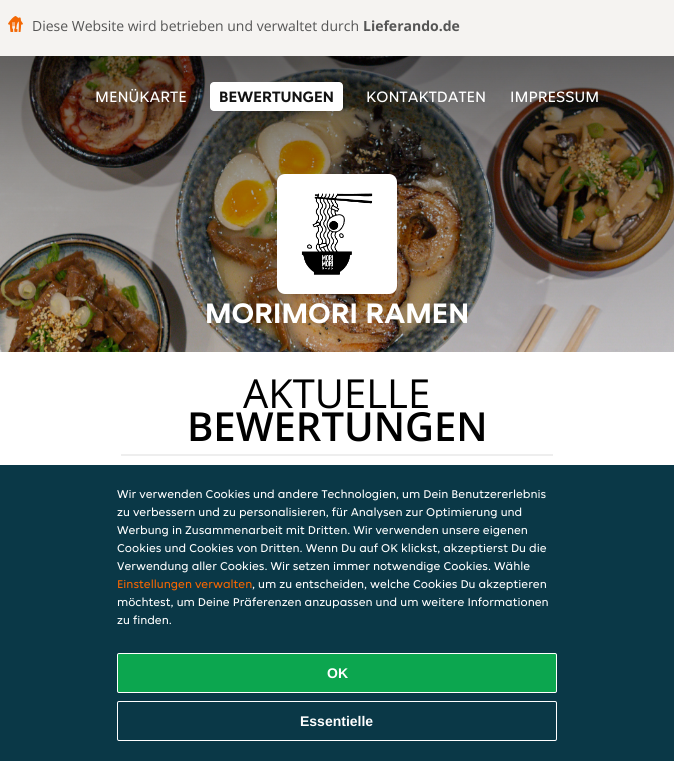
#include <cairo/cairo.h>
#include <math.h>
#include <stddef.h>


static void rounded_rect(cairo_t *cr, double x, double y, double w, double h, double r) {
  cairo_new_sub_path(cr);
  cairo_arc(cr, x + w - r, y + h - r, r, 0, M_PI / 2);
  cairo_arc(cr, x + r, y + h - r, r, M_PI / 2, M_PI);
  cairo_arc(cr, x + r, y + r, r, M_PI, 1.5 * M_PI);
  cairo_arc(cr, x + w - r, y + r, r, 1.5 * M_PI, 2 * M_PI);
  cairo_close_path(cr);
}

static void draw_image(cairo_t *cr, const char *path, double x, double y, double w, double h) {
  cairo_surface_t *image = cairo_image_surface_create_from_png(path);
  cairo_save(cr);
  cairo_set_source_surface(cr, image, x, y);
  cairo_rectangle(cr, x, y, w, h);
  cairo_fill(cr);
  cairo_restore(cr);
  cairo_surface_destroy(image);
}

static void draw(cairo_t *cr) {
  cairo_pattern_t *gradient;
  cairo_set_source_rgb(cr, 1, 1, 1);
  cairo_paint(cr);
  cairo_set_source_rgb(cr, 245 / 255.0, 243 / 255.0, 241 / 255.0);
  cairo_rectangle(cr, 0, 0, 674, 56);
  cairo_fill(cr);
  draw_image(cr, "images/1.png", 8, 16, 15, 16);
  draw_image(cr, "images/2.png", 0, 56, 674, 296);
  gradient = cairo_pattern_create_linear(337, 0, 337, 500);
  cairo_pattern_add_color_stop_rgba(gradient, 0, 0, 0, 0, 0.7);
  cairo_pattern_add_color_stop_rgba(gradient, 0.33, 0, 0, 0, 0.4);
  cairo_pattern_add_color_stop_rgba(gradient, 0.67, 0, 0, 0, 0.2);
  cairo_pattern_add_color_stop_rgba(gradient, 1, 0, 0, 0, 0);
  cairo_set_source(cr, gradient);
  cairo_pattern_destroy(gradient);
  cairo_rectangle(cr, 0, 56, 674, 296);
  cairo_fill(cr);
  cairo_set_source_rgb(cr, 1, 1, 1);
  rounded_rect(cr, 210, 82, 133, 29, 4);
  cairo_fill(cr);
  rounded_rect(cr, 277, 174, 120, 120, 8);
  cairo_fill(cr);
  draw_image(cr, "images/3.png", 301, 193, 72, 82);
  cairo_set_source_rgb(cr, 238 / 255.0, 238 / 255.0, 238 / 255.0);
  cairo_rectangle(cr, 121, 454, 432, 2);
  cairo_fill(cr);
  cairo_set_source_rgb(cr, 10 / 255.0, 56 / 255.0, 71 / 255.0);
  cairo_rectangle(cr, 0, 465, 674, 296);
  cairo_fill(cr);
  cairo_set_source_rgb(cr, 12 / 255.0, 166 / 255.0, 79 / 255.0);
  rounded_rect(cr, 117.5, 653.5, 439, 39, 1.5);
  cairo_fill_preserve(cr);
  cairo_set_source_rgb(cr, 1, 1, 1);
  cairo_set_line_width(cr, 1);
  cairo_stroke(cr);
  rounded_rect(cr, 117.5, 701.5, 439, 39, 1.5);
  cairo_stroke(cr);
  cairo_select_font_face(cr, "Open Sans", CAIRO_FONT_SLANT_NORMAL, CAIRO_FONT_WEIGHT_NORMAL);
  cairo_set_font_size(cr, 14);
  cairo_set_source_rgb(cr, 85 / 255.0, 85 / 255.0, 85 / 255.0);
  cairo_move_to(cr, 32, 31);
  cairo_show_text(cr, "Diese Website wird betrieben und verwaltet durch");
  cairo_select_font_face(cr, "Open Sans", CAIRO_FONT_SLANT_NORMAL, CAIRO_FONT_WEIGHT_BOLD);
  cairo_move_to(cr, 363, 31);
  cairo_show_text(cr, "Lieferando.de");
  cairo_select_font_face(cr, "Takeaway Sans", CAIRO_FONT_SLANT_NORMAL, CAIRO_FONT_WEIGHT_NORMAL);
  cairo_set_font_size(cr, 16);
  cairo_set_source_rgb(cr, 1, 1, 1);
  cairo_move_to(cr, 95, 102);
  cairo_show_text(cr, "MENÜKARTE");
  cairo_select_font_face(cr, "Takeaway Sans", CAIRO_FONT_SLANT_NORMAL, CAIRO_FONT_WEIGHT_BOLD);
  cairo_set_source_rgb(cr, 18 / 255.0, 18 / 255.0, 18 / 255.0);
  cairo_move_to(cr, 219, 102);
  cairo_show_text(cr, "BEWERTUNGEN");
  cairo_select_font_face(cr, "Takeaway Sans", CAIRO_FONT_SLANT_NORMAL, CAIRO_FONT_WEIGHT_NORMAL);
  cairo_set_source_rgb(cr, 1, 1, 1);
  cairo_move_to(cr, 366, 102);
  cairo_show_text(cr, "KONTAKTDATEN");
  cairo_move_to(cr, 510, 102);
  cairo_show_text(cr, "IMPRESSUM");
  cairo_select_font_face(cr, "Takeaway Sans", CAIRO_FONT_SLANT_NORMAL, CAIRO_FONT_WEIGHT_BOLD);
  cairo_set_font_size(cr, 30);
  cairo_move_to(cr, 205, 323);
  cairo_show_text(cr, "MORIMORI RAMEN");
  cairo_select_font_face(cr, "Open Sans", CAIRO_FONT_SLANT_NORMAL, CAIRO_FONT_WEIGHT_NORMAL);
  cairo_set_font_size(cr, 40);
  cairo_set_source_rgb(cr, 0, 0, 0);
  cairo_move_to(cr, 243, 408);
  cairo_show_text(cr, "AKTUELLE");
  cairo_select_font_face(cr, "Open Sans SemiBold", CAIRO_FONT_SLANT_NORMAL, CAIRO_FONT_WEIGHT_NORMAL);
  cairo_move_to(cr, 187, 441);
  cairo_show_text(cr, "BEWERTUNGEN");
  cairo_select_font_face(cr, "Takeaway Sans", CAIRO_FONT_SLANT_NORMAL, CAIRO_FONT_WEIGHT_NORMAL);
  cairo_set_font_size(cr, 12);
  cairo_set_source_rgb(cr, 1, 1, 1);
  cairo_move_to(cr, 117, 498);
  cairo_show_text(cr, "Wir verwenden Cookies und andere Technologien, um Dein Benutzererlebnis");
  cairo_move_to(cr, 117, 516);
  cairo_show_text(cr, "zu verbessern und zu personalisieren, für Analysen zur Optimierung und");
  cairo_move_to(cr, 117, 534);
  cairo_show_text(cr, "Werbung in Zusammenarbeit mit Dritten. Wir verwenden unsere eigenen");
  cairo_move_to(cr, 117, 552);
  cairo_show_text(cr, "Cookies und Cookies von Dritten. Wenn Du auf OK klickst, akzeptierst Du die");
  cairo_move_to(cr, 117, 570);
  cairo_show_text(cr, "Verwendung aller Cookies. Wir setzen immer notwendige Cookies. Wähle");
  cairo_set_source_rgb(cr, 248 / 255.0, 102 / 255.0, 0);
  cairo_move_to(cr, 117, 588);
  cairo_show_text(cr, "Einstellungen verwalten");
  cairo_set_source_rgb(cr, 1, 1, 1);
  cairo_move_to(cr, 252, 588);
  cairo_show_text(cr, ", um zu entscheiden, welche Cookies Du akzeptieren");
  cairo_move_to(cr, 117, 606);
  cairo_show_text(cr, "möchtest, um Deine Präferenzen anzupassen und um weitere Informationen");
  cairo_move_to(cr, 117, 624);
  cairo_show_text(cr, "zu finden.");
  cairo_select_font_face(cr, "Liberation Sans", CAIRO_FONT_SLANT_NORMAL, CAIRO_FONT_WEIGHT_BOLD);
  cairo_set_font_size(cr, 14);
  cairo_move_to(cr, 327, 678);
  cairo_show_text(cr, "OK");
  cairo_move_to(cr, 300, 726);
  cairo_show_text(cr, "Essentielle");
}

int main(void) {
  cairo_surface_t *surface = cairo_image_surface_create(CAIRO_FORMAT_RGB24, 674, 761);
  cairo_t *cr = cairo_create(surface);
  cairo_font_options_t *options = cairo_font_options_create();
  cairo_font_options_set_hint_metrics(options, CAIRO_HINT_METRICS_OFF);
  cairo_font_options_set_hint_style(options, CAIRO_HINT_STYLE_NONE);
  cairo_set_font_options(cr, options);
  cairo_set_miter_limit(cr, 4);
  draw(cr);
  cairo_surface_write_to_png(surface, "out.png");
  cairo_font_options_destroy(options);
  cairo_destroy(cr);
  cairo_surface_destroy(surface);
  return 0;
}
